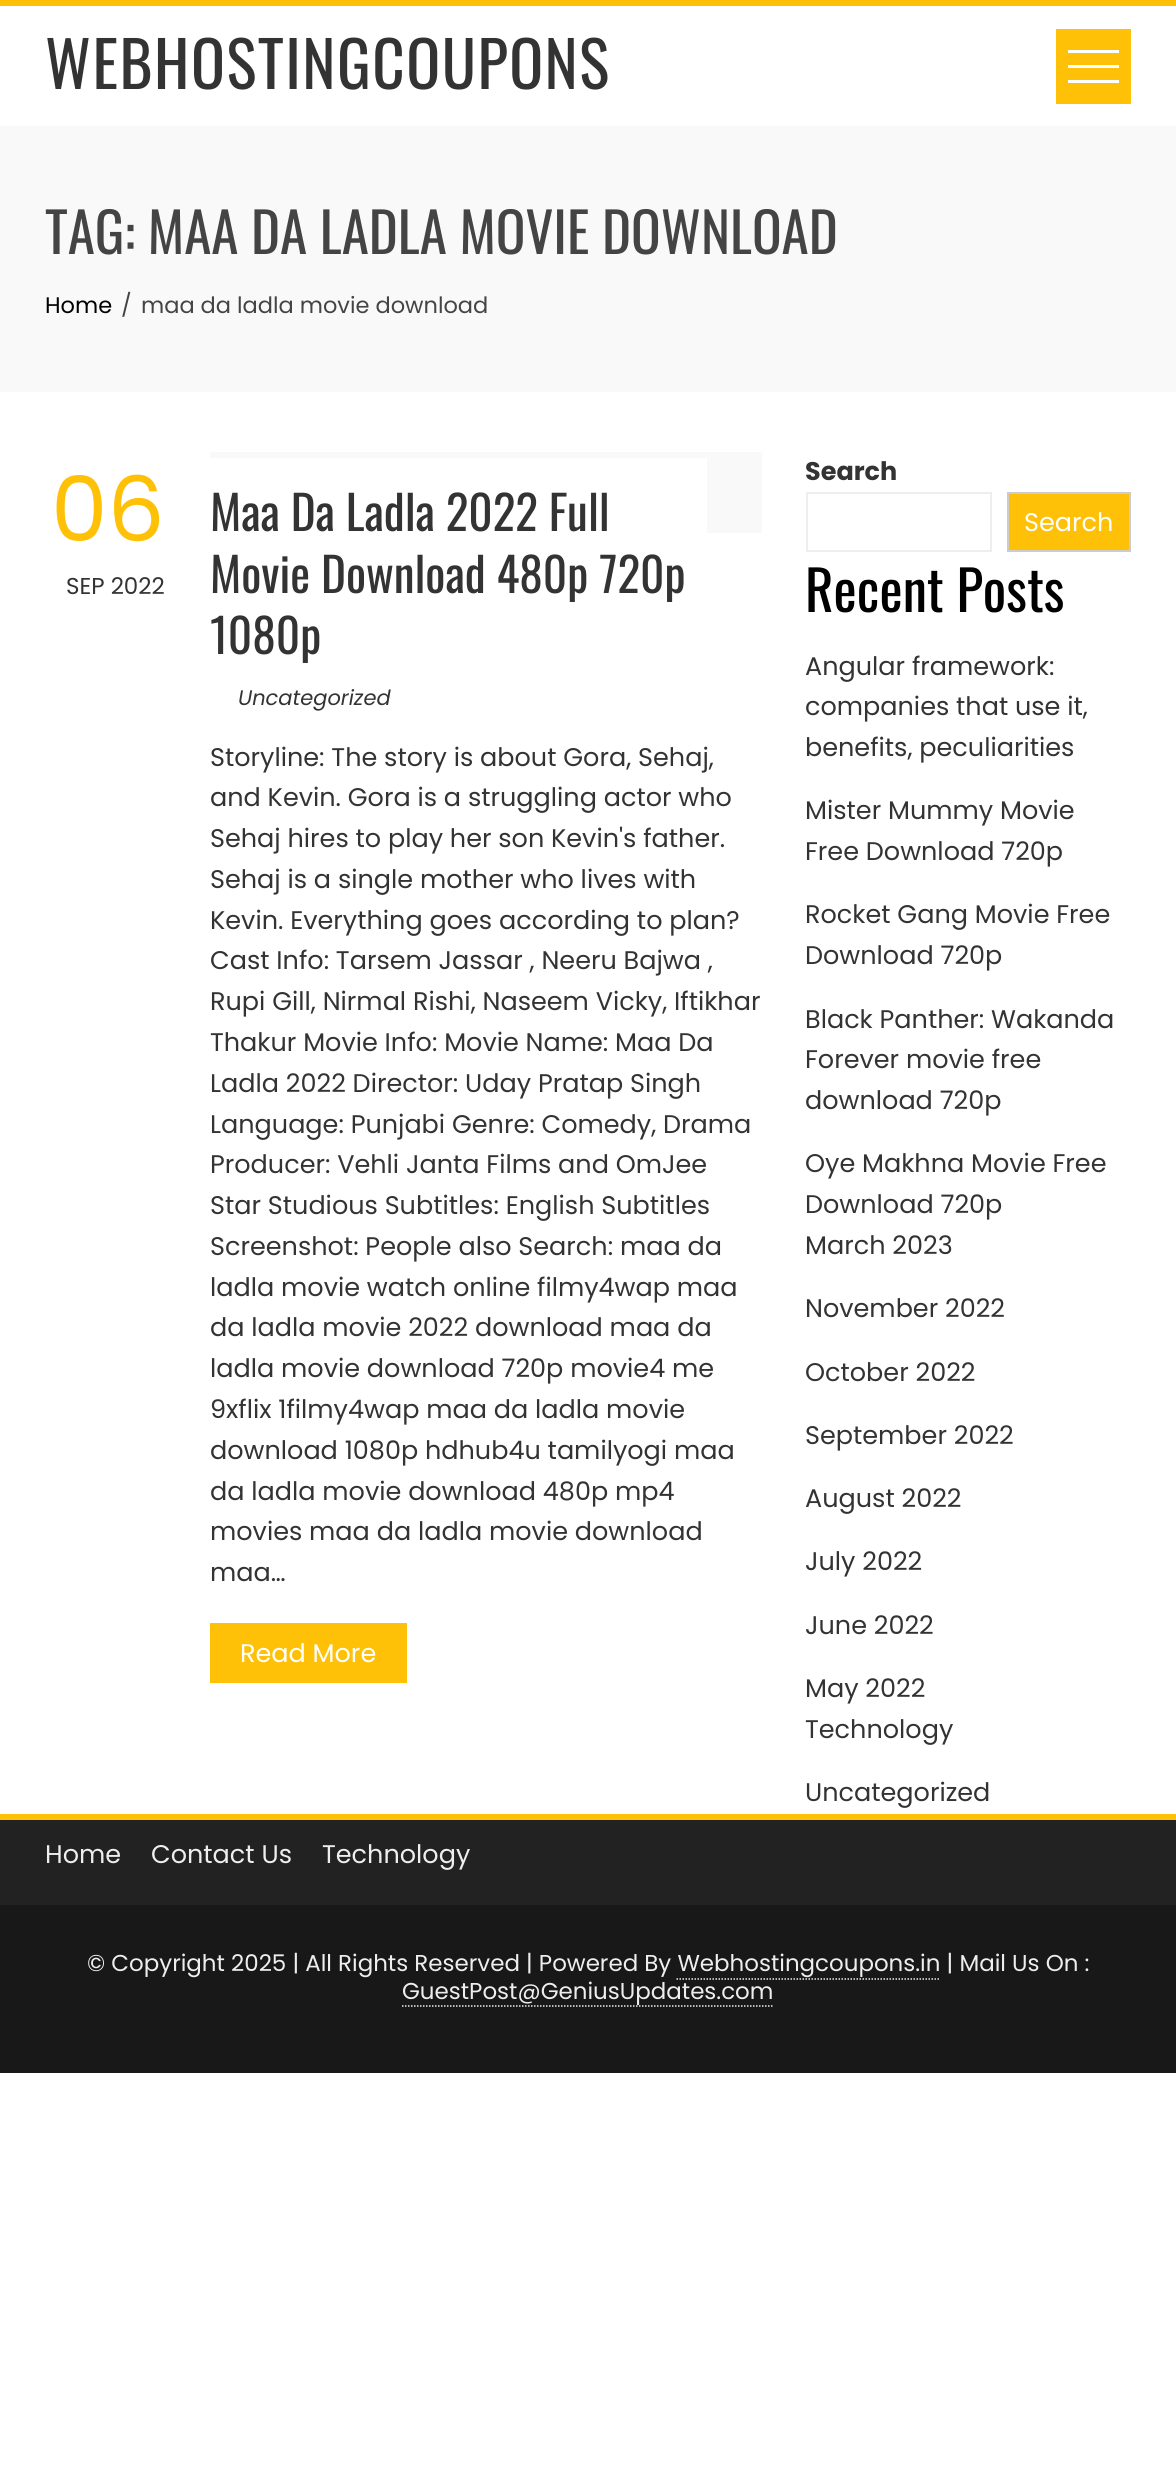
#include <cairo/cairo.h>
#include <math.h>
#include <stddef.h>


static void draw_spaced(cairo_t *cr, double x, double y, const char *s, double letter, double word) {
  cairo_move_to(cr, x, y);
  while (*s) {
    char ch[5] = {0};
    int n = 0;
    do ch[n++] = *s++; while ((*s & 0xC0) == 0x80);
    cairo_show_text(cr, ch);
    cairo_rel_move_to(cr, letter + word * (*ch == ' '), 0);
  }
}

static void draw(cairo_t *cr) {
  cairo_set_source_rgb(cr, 1, 1, 1);
  cairo_paint(cr);
  cairo_set_source_rgb(cr, 1, 193 / 255.0, 7 / 255.0);
  cairo_rectangle(cr, 0, 0, 1176, 6);
  cairo_fill(cr);
  cairo_rectangle(cr, 1056, 29, 75, 75);
  cairo_fill(cr);
  cairo_set_source_rgb(cr, 1, 1, 1);
  cairo_rectangle(cr, 1068, 50, 51, 3);
  cairo_fill(cr);
  cairo_rectangle(cr, 1068, 80, 51, 3);
  cairo_fill(cr);
  cairo_rectangle(cr, 1068, 65, 51, 3);
  cairo_fill(cr);
  cairo_set_source_rgb(cr, 249 / 255.0, 249 / 255.0, 249 / 255.0);
  cairo_rectangle(cr, 0, 126, 1176, 266);
  cairo_fill(cr);
  cairo_rectangle(cr, 210, 452, 552, 81);
  cairo_fill(cr);
  cairo_set_source_rgb(cr, 1, 1, 1);
  cairo_rectangle(cr, 210, 458, 497, 75);
  cairo_fill(cr);
  cairo_set_source_rgb(cr, 1, 193 / 255.0, 7 / 255.0);
  cairo_rectangle(cr, 210, 1623, 197, 60);
  cairo_fill(cr);
  cairo_rectangle(cr, 807, 493, 184, 58);
  cairo_set_source_rgb(cr, 238 / 255.0, 238 / 255.0, 238 / 255.0);
  cairo_stroke(cr);
  cairo_set_source_rgb(cr, 1, 193 / 255.0, 7 / 255.0);
  cairo_rectangle(cr, 1008, 493, 122, 58);
  cairo_fill_preserve(cr);
  cairo_set_source_rgb(cr, 204 / 255.0, 204 / 255.0, 204 / 255.0);
  cairo_stroke(cr);
  cairo_set_source_rgb(cr, 34 / 255.0, 34 / 255.0, 34 / 255.0);
  cairo_rectangle(cr, 0, 1820, 1176, 85);
  cairo_fill(cr);
  cairo_set_source_rgb(cr, 1, 193 / 255.0, 7 / 255.0);
  cairo_rectangle(cr, 0, 1814, 1176, 6);
  cairo_fill(cr);
  cairo_set_source_rgb(cr, 24 / 255.0, 24 / 255.0, 24 / 255.0);
  cairo_rectangle(cr, 0, 1905, 1176, 168);
  cairo_fill(cr);
  cairo_new_path(cr);
  cairo_move_to(cr, 676.5, 1979);
  cairo_line_to(cr, 940.5, 1979);
  cairo_set_source_rgb(cr, 238 / 255.0, 238 / 255.0, 238 / 255.0);
  cairo_set_line_width(cr, 1.5);
  cairo_set_dash(cr, (double[]){1.5, 1.5}, 2, 0);
  cairo_stroke(cr);
  cairo_new_path(cr);
  cairo_move_to(cr, 402, 2006);
  cairo_line_to(cr, 774, 2006);
  cairo_stroke(cr);
  cairo_select_font_face(cr, "Oswald", CAIRO_FONT_SLANT_NORMAL, CAIRO_FONT_WEIGHT_NORMAL);
  cairo_set_font_size(cr, 63);
  cairo_set_source_rgb(cr, 51 / 255.0, 51 / 255.0, 51 / 255.0);
  draw_spaced(cr, 45, 89, "WEBHOSTINGCOUPONS", 1.5, 0);
  cairo_set_font_size(cr, 55.1);
  cairo_set_source_rgb(cr, 68 / 255.0, 68 / 255.0, 68 / 255.0);
  cairo_move_to(cr, 45, 254);
  cairo_show_text(cr, "TAG: MAA DA LADLA MOVIE DOWNLOAD");
  cairo_select_font_face(cr, "Poppins", CAIRO_FONT_SLANT_NORMAL, CAIRO_FONT_WEIGHT_NORMAL);
  cairo_set_font_size(cr, 22.5);
  cairo_set_source_rgb(cr, 0, 0, 0);
  cairo_move_to(cr, 45, 313);
  cairo_show_text(cr, "Home");
  cairo_set_source_rgb(cr, 68 / 255.0, 68 / 255.0, 68 / 255.0);
  cairo_move_to(cr, 121, 313);
  cairo_show_text(cr, "/");
  cairo_move_to(cr, 141, 313);
  cairo_show_text(cr, "maa da ladla movie download");
  cairo_set_font_size(cr, 90);
  cairo_set_source_rgb(cr, 1, 193 / 255.0, 7 / 255.0);
  cairo_move_to(cr, 51, 541);
  cairo_show_text(cr, "06");
  cairo_set_font_size(cr, 22.95);
  cairo_set_source_rgb(cr, 51 / 255.0, 51 / 255.0, 51 / 255.0);
  cairo_move_to(cr, 66, 594);
  cairo_show_text(cr, "SEP 2022");
  cairo_select_font_face(cr, "Oswald", CAIRO_FONT_SLANT_NORMAL, CAIRO_FONT_WEIGHT_NORMAL);
  cairo_set_font_size(cr, 47.25);
  cairo_move_to(cr, 210, 531);
  cairo_show_text(cr, "Maa Da Ladla 2022 Full");
  cairo_move_to(cr, 210, 593);
  cairo_show_text(cr, "Movie Download 480p 720p");
  cairo_move_to(cr, 210, 654);
  cairo_show_text(cr, "1080p");
  cairo_select_font_face(cr, "Poppins", CAIRO_FONT_SLANT_ITALIC, CAIRO_FONT_WEIGHT_NORMAL);
  cairo_set_font_size(cr, 21);
  cairo_move_to(cr, 238, 705);
  cairo_show_text(cr, "Uncategorized");
  cairo_select_font_face(cr, "Poppins", CAIRO_FONT_SLANT_NORMAL, CAIRO_FONT_WEIGHT_NORMAL);
  cairo_set_font_size(cr, 25.5);
  cairo_move_to(cr, 210, 766);
  cairo_show_text(cr, "Storyline: The story is about Gora, Sehaj,");
  cairo_move_to(cr, 210, 806);
  cairo_show_text(cr, "and Kevin. Gora is a struggling actor who");
  cairo_move_to(cr, 210, 847);
  cairo_show_text(cr, "Sehaj hires to play her son Kevin's father.");
  cairo_move_to(cr, 210, 888);
  cairo_show_text(cr, "Sehaj is a single mother who lives with");
  cairo_move_to(cr, 210, 929);
  cairo_show_text(cr, "Kevin. Everything goes according to plan?");
  cairo_move_to(cr, 210, 969);
  cairo_show_text(cr, "Cast Info: Tarsem Jassar , Neeru Bajwa ,");
  cairo_move_to(cr, 210, 1010);
  cairo_show_text(cr, "Rupi Gill, Nirmal Rishi, Naseem Vicky, Iftikhar");
  cairo_move_to(cr, 210, 1051);
  cairo_show_text(cr, "Thakur Movie Info: Movie Name: Maa Da");
  cairo_move_to(cr, 210, 1092);
  cairo_show_text(cr, "Ladla 2022 Director: Uday Pratap Singh");
  cairo_move_to(cr, 210, 1133);
  cairo_show_text(cr, "Language: Punjabi Genre: Comedy, Drama");
  cairo_move_to(cr, 210, 1173);
  cairo_show_text(cr, "Producer: Vehli Janta Films and OmJee");
  cairo_move_to(cr, 210, 1214);
  cairo_show_text(cr, "Star Studious Subtitles: English Subtitles");
  cairo_move_to(cr, 210, 1255);
  cairo_show_text(cr, "Screenshot: People also Search: maa da");
  cairo_move_to(cr, 210, 1296);
  cairo_show_text(cr, "ladla movie watch online filmy4wap maa");
  cairo_move_to(cr, 210, 1336);
  cairo_show_text(cr, "da ladla movie 2022 download maa da");
  cairo_move_to(cr, 210, 1377);
  cairo_show_text(cr, "ladla movie download 720p movie4 me");
  cairo_move_to(cr, 210, 1418);
  cairo_show_text(cr, "9xflix 1filmy4wap maa da ladla movie");
  cairo_move_to(cr, 210, 1459);
  cairo_show_text(cr, "download 1080p hdhub4u tamilyogi maa");
  cairo_move_to(cr, 210, 1500);
  cairo_show_text(cr, "da ladla movie download 480p mp4");
  cairo_move_to(cr, 210, 1540);
  cairo_show_text(cr, "movies maa da ladla movie download");
  cairo_move_to(cr, 210, 1581);
  cairo_show_text(cr, "maa…");
  cairo_set_source_rgb(cr, 1, 1, 1);
  cairo_move_to(cr, 240, 1662);
  cairo_show_text(cr, "Read More");
  cairo_select_font_face(cr, "Poppins", CAIRO_FONT_SLANT_NORMAL, CAIRO_FONT_WEIGHT_BOLD);
  cairo_set_source_rgb(cr, 51 / 255.0, 51 / 255.0, 51 / 255.0);
  cairo_move_to(cr, 805, 480);
  cairo_show_text(cr, "Search");
  cairo_select_font_face(cr, "Poppins", CAIRO_FONT_SLANT_NORMAL, CAIRO_FONT_WEIGHT_NORMAL);
  cairo_set_source_rgb(cr, 1, 1, 1);
  cairo_move_to(cr, 1024, 531);
  cairo_show_text(cr, "Search");
  cairo_select_font_face(cr, "Oswald", CAIRO_FONT_SLANT_NORMAL, CAIRO_FONT_WEIGHT_NORMAL);
  cairo_set_font_size(cr, 55.1);
  cairo_set_source_rgb(cr, 0, 0, 0);
  cairo_move_to(cr, 805, 612);
  cairo_show_text(cr, "Recent Posts");
  cairo_select_font_face(cr, "Poppins", CAIRO_FONT_SLANT_NORMAL, CAIRO_FONT_WEIGHT_NORMAL);
  cairo_set_font_size(cr, 25.5);
  cairo_set_source_rgb(cr, 51 / 255.0, 51 / 255.0, 51 / 255.0);
  cairo_move_to(cr, 805, 675);
  cairo_show_text(cr, "Angular framework:");
  cairo_move_to(cr, 805, 715);
  cairo_show_text(cr, "companies that use it,");
  cairo_move_to(cr, 805, 756);
  cairo_show_text(cr, "benefits, peculiarities");
  cairo_move_to(cr, 805, 819);
  cairo_show_text(cr, "Mister Mummy Movie");
  cairo_move_to(cr, 805, 860);
  cairo_show_text(cr, "Free Download 720p");
  cairo_move_to(cr, 805, 923);
  cairo_show_text(cr, "Rocket Gang Movie Free");
  cairo_move_to(cr, 805, 964);
  cairo_show_text(cr, "Download 720p");
  cairo_move_to(cr, 805, 1028);
  cairo_show_text(cr, "Black Panther: Wakanda");
  cairo_move_to(cr, 805, 1068);
  cairo_show_text(cr, "Forever movie free");
  cairo_move_to(cr, 805, 1109);
  cairo_show_text(cr, "download 720p");
  cairo_move_to(cr, 805, 1172);
  cairo_show_text(cr, "Oye Makhna Movie Free");
  cairo_move_to(cr, 805, 1213);
  cairo_show_text(cr, "Download 720p");
  cairo_move_to(cr, 805, 1254);
  cairo_show_text(cr, "March 2023");
  cairo_move_to(cr, 805, 1317);
  cairo_show_text(cr, "November 2022");
  cairo_move_to(cr, 805, 1381);
  cairo_show_text(cr, "October 2022");
  cairo_move_to(cr, 805, 1444);
  cairo_show_text(cr, "September 2022");
  cairo_move_to(cr, 805, 1507);
  cairo_show_text(cr, "August 2022");
  cairo_move_to(cr, 805, 1570);
  cairo_show_text(cr, "July 2022");
  cairo_move_to(cr, 805, 1634);
  cairo_show_text(cr, "June 2022");
  cairo_move_to(cr, 805, 1697);
  cairo_show_text(cr, "May 2022");
  cairo_move_to(cr, 805, 1738);
  cairo_show_text(cr, "Technology");
  cairo_move_to(cr, 805, 1801);
  cairo_show_text(cr, "Uncategorized");
  cairo_set_source_rgb(cr, 238 / 255.0, 238 / 255.0, 238 / 255.0);
  cairo_move_to(cr, 45, 1863);
  cairo_show_text(cr, "Home");
  cairo_move_to(cr, 151, 1863);
  cairo_show_text(cr, "Contact Us");
  cairo_move_to(cr, 322, 1863);
  cairo_show_text(cr, "Technology");
  cairo_set_font_size(cr, 22.95);
  cairo_move_to(cr, 87, 1971);
  cairo_show_text(cr, "© Copyright 2025 | All Rights Reserved | Powered By Webhostingcoupons.in | Mail Us On :");
  cairo_move_to(cr, 402, 1999);
  cairo_show_text(cr, "GuestPost@GeniusUpdates.com");
}

int main(void) {
  cairo_surface_t *surface = cairo_image_surface_create(CAIRO_FORMAT_RGB24, 1176, 2492);
  cairo_t *cr = cairo_create(surface);
  cairo_font_options_t *options = cairo_font_options_create();
  cairo_font_options_set_hint_metrics(options, CAIRO_HINT_METRICS_OFF);
  cairo_font_options_set_hint_style(options, CAIRO_HINT_STYLE_NONE);
  cairo_set_font_options(cr, options);
  cairo_set_miter_limit(cr, 4);
  draw(cr);
  cairo_surface_write_to_png(surface, "out.png");
  cairo_font_options_destroy(options);
  cairo_destroy(cr);
  cairo_surface_destroy(surface);
  return 0;
}
